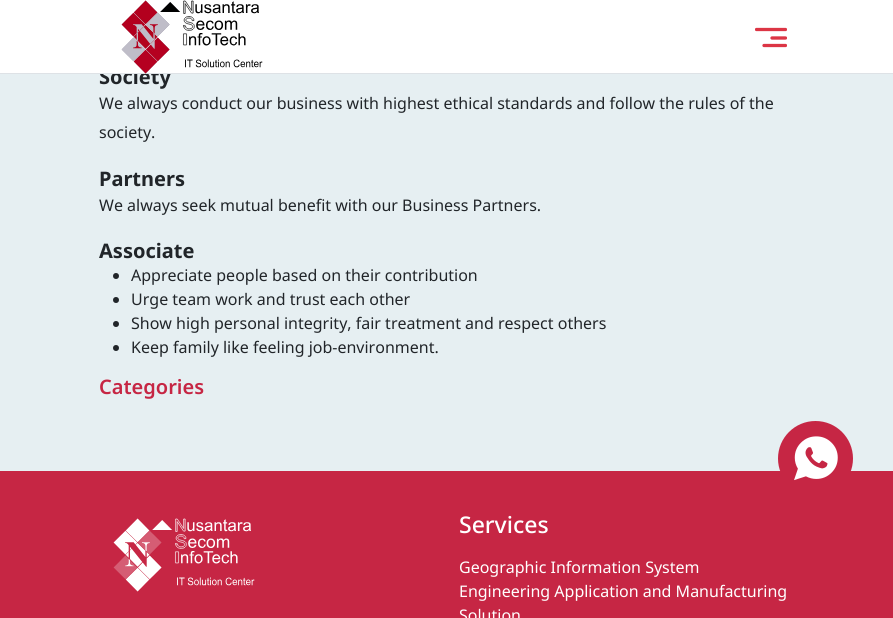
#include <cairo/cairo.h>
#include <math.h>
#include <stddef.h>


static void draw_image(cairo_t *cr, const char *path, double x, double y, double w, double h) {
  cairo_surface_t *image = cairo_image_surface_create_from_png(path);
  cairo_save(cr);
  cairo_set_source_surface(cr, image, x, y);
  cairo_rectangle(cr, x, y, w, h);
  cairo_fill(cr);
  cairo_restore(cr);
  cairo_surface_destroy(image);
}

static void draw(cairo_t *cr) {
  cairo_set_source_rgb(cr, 230 / 255.0, 239 / 255.0, 242 / 255.0);
  cairo_paint(cr);
  cairo_set_source_rgb(cr, 33 / 255.0, 37 / 255.0, 41 / 255.0);
  cairo_arc(cr, 116, 276, 3, 0, 2 * M_PI);
  cairo_fill(cr);
  cairo_arc(cr, 116, 300, 3, 0, 2 * M_PI);
  cairo_fill(cr);
  cairo_arc(cr, 116, 324, 3, 0, 2 * M_PI);
  cairo_fill(cr);
  cairo_arc(cr, 116, 348, 3, 0, 2 * M_PI);
  cairo_fill(cr);
  cairo_set_source_rgb(cr, 198 / 255.0, 38 / 255.0, 68 / 255.0);
  cairo_rectangle(cr, 0, 471, 893, 147);
  cairo_fill(cr);
  cairo_arc(cr, 815.5, 458.5, 37.5, 0, 2 * M_PI);
  cairo_fill(cr);
  draw_image(cr, "images/2.png", 794, 436, 44, 45);
  draw_image(cr, "images/3.png", 113, 518, 142, 74);
  cairo_select_font_face(cr, "Noto Sans", CAIRO_FONT_SLANT_NORMAL, CAIRO_FONT_WEIGHT_BOLD);
  cairo_set_font_size(cr, 20);
  cairo_set_source_rgb(cr, 33 / 255.0, 37 / 255.0, 41 / 255.0);
  cairo_move_to(cr, 99, 84);
  cairo_show_text(cr, "Society");
  cairo_set_source_rgb(cr, 1, 1, 1);
  cairo_rectangle(cr, 0, 0, 893, 73);
  cairo_fill(cr);
  cairo_save(cr);
  cairo_rectangle(cr, 755, 26, 32, 23);
  cairo_clip(cr);
  cairo_new_path(cr);
  cairo_move_to(cr, 756.5, 29.5);
  cairo_line_to(cr, 785.5, 29.5);
  cairo_move_to(cr, 764, 45.5);
  cairo_line_to(cr, 785.5, 45.5);
  cairo_move_to(cr, 772, 38);
  cairo_line_to(cr, 785.5, 38);
  cairo_set_source_rgb(cr, 220 / 255.0, 53 / 255.0, 69 / 255.0);
  cairo_set_line_width(cr, 3.3);
  cairo_set_line_cap(cr, CAIRO_LINE_CAP_ROUND);
  cairo_set_line_join(cr, CAIRO_LINE_JOIN_ROUND);
  cairo_stroke(cr);
  cairo_restore(cr);
  cairo_set_source_rgb(cr, 222 / 255.0, 226 / 255.0, 230 / 255.0);
  cairo_rectangle(cr, 0, 73, 893, 1);
  cairo_fill(cr);
  draw_image(cr, "images/1.png", 121, 0, 142, 74);
  cairo_select_font_face(cr, "Noto Sans", CAIRO_FONT_SLANT_NORMAL, CAIRO_FONT_WEIGHT_NORMAL);
  cairo_set_font_size(cr, 16);
  cairo_set_source_rgb(cr, 33 / 255.0, 37 / 255.0, 41 / 255.0);
  cairo_move_to(cr, 99, 109);
  cairo_show_text(cr, "We always conduct our business with highest ethical standards and follow the rules of the");
  cairo_move_to(cr, 99, 138);
  cairo_show_text(cr, "society.");
  cairo_select_font_face(cr, "Noto Sans", CAIRO_FONT_SLANT_NORMAL, CAIRO_FONT_WEIGHT_BOLD);
  cairo_set_font_size(cr, 20);
  cairo_move_to(cr, 99, 186);
  cairo_show_text(cr, "Partners");
  cairo_select_font_face(cr, "Noto Sans", CAIRO_FONT_SLANT_NORMAL, CAIRO_FONT_WEIGHT_NORMAL);
  cairo_set_font_size(cr, 16);
  cairo_move_to(cr, 99, 211);
  cairo_show_text(cr, "We always seek mutual benefit with our Business Partners.");
  cairo_select_font_face(cr, "Noto Sans", CAIRO_FONT_SLANT_NORMAL, CAIRO_FONT_WEIGHT_BOLD);
  cairo_set_font_size(cr, 20);
  cairo_move_to(cr, 99, 258);
  cairo_show_text(cr, "Associate");
  cairo_select_font_face(cr, "Noto Sans", CAIRO_FONT_SLANT_NORMAL, CAIRO_FONT_WEIGHT_NORMAL);
  cairo_set_font_size(cr, 16);
  cairo_move_to(cr, 131, 281);
  cairo_show_text(cr, "Appreciate people based on their contribution");
  cairo_move_to(cr, 131, 305);
  cairo_show_text(cr, "Urge team work and trust each other");
  cairo_move_to(cr, 131, 329);
  cairo_show_text(cr, "Show high personal integrity, fair treatment and respect others");
  cairo_move_to(cr, 131, 353);
  cairo_show_text(cr, "Keep family like feeling job-environment.");
  cairo_select_font_face(cr, "Noto Sans SemiBold", CAIRO_FONT_SLANT_NORMAL, CAIRO_FONT_WEIGHT_NORMAL);
  cairo_set_font_size(cr, 20);
  cairo_set_source_rgb(cr, 198 / 255.0, 38 / 255.0, 68 / 255.0);
  cairo_move_to(cr, 99, 394);
  cairo_show_text(cr, "Categories");
  cairo_select_font_face(cr, "Noto Sans Medium", CAIRO_FONT_SLANT_NORMAL, CAIRO_FONT_WEIGHT_NORMAL);
  cairo_set_font_size(cr, 23);
  cairo_set_source_rgb(cr, 1, 1, 1);
  cairo_move_to(cr, 459, 533);
  cairo_show_text(cr, "Services");
  cairo_select_font_face(cr, "Noto Sans", CAIRO_FONT_SLANT_NORMAL, CAIRO_FONT_WEIGHT_NORMAL);
  cairo_set_font_size(cr, 16);
  cairo_move_to(cr, 459, 573);
  cairo_show_text(cr, "Geographic Information System");
  cairo_move_to(cr, 459, 597);
  cairo_show_text(cr, "Engineering Application and Manufacturing");
  cairo_move_to(cr, 459, 621);
  cairo_show_text(cr, "Solution");
}

int main(void) {
  cairo_surface_t *surface = cairo_image_surface_create(CAIRO_FORMAT_RGB24, 893, 618);
  cairo_t *cr = cairo_create(surface);
  cairo_font_options_t *options = cairo_font_options_create();
  cairo_font_options_set_hint_metrics(options, CAIRO_HINT_METRICS_OFF);
  cairo_font_options_set_hint_style(options, CAIRO_HINT_STYLE_NONE);
  cairo_set_font_options(cr, options);
  cairo_set_miter_limit(cr, 4);
  draw(cr);
  cairo_surface_write_to_png(surface, "out.png");
  cairo_font_options_destroy(options);
  cairo_destroy(cr);
  cairo_surface_destroy(surface);
  return 0;
}
